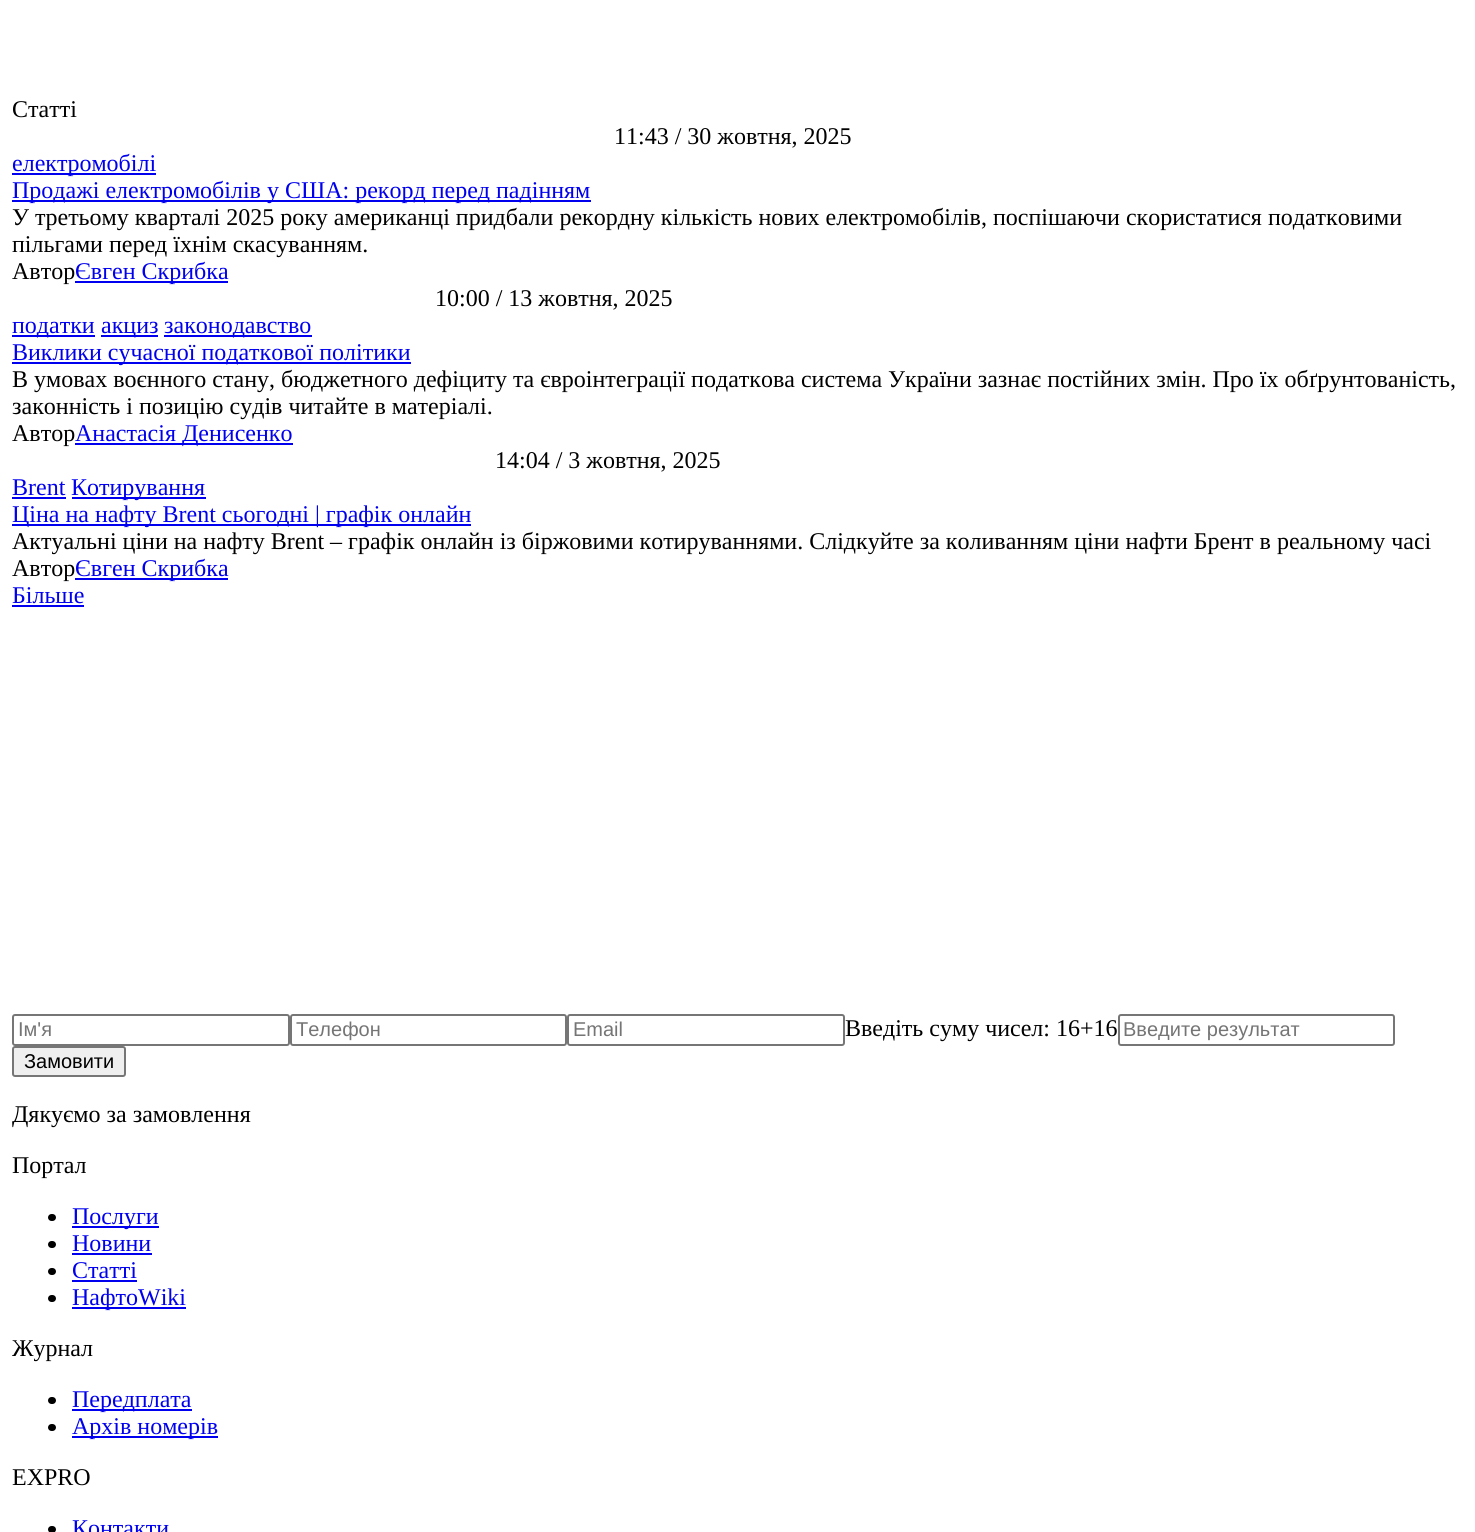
#include <cairo/cairo.h>
#include <math.h>
#include <stddef.h>


static void rounded_rect(cairo_t *cr, double x, double y, double w, double h, double r) {
  cairo_new_sub_path(cr);
  cairo_arc(cr, x + w - r, y + h - r, r, 0, M_PI / 2);
  cairo_arc(cr, x + r, y + h - r, r, M_PI / 2, M_PI);
  cairo_arc(cr, x + r, y + r, r, M_PI, 1.5 * M_PI);
  cairo_arc(cr, x + w - r, y + r, r, 1.5 * M_PI, 2 * M_PI);
  cairo_close_path(cr);
}

static void draw(cairo_t *cr) {
  cairo_set_source_rgb(cr, 1, 1, 1);
  cairo_paint(cr);
  cairo_set_source_rgb(cr, 0, 0, 238 / 255.0);
  cairo_rectangle(cr, 12, 173, 144, 2);
  cairo_fill(cr);
  cairo_rectangle(cr, 12, 200, 579, 2);
  cairo_fill(cr);
  cairo_rectangle(cr, 75, 281, 153, 2);
  cairo_fill(cr);
  cairo_rectangle(cr, 12, 335, 83, 2);
  cairo_fill(cr);
  cairo_rectangle(cr, 101, 335, 57, 2);
  cairo_fill(cr);
  cairo_rectangle(cr, 164, 335, 148, 2);
  cairo_fill(cr);
  cairo_rectangle(cr, 12, 362, 399, 2);
  cairo_fill(cr);
  cairo_rectangle(cr, 75, 443, 218, 2);
  cairo_fill(cr);
  cairo_rectangle(cr, 12, 497, 54, 2);
  cairo_fill(cr);
  cairo_rectangle(cr, 72, 497, 134, 2);
  cairo_fill(cr);
  cairo_rectangle(cr, 12, 524, 459, 2);
  cairo_fill(cr);
  cairo_rectangle(cr, 75, 578, 153, 2);
  cairo_fill(cr);
  cairo_rectangle(cr, 12, 605, 72, 2);
  cairo_fill(cr);
  rounded_rect(cr, 13, 1015, 276, 30, 2);
  cairo_set_source_rgb(cr, 118 / 255.0, 118 / 255.0, 118 / 255.0);
  cairo_stroke(cr);
  rounded_rect(cr, 291, 1015, 275, 30, 2);
  cairo_stroke(cr);
  rounded_rect(cr, 568, 1015, 276, 30, 2);
  cairo_stroke(cr);
  rounded_rect(cr, 1119, 1015, 275, 30, 2);
  cairo_stroke(cr);
  cairo_set_source_rgb(cr, 239 / 255.0, 239 / 255.0, 239 / 255.0);
  rounded_rect(cr, 13, 1047, 112, 29, 2);
  cairo_fill_preserve(cr);
  cairo_set_source_rgb(cr, 118 / 255.0, 118 / 255.0, 118 / 255.0);
  cairo_stroke(cr);
  cairo_set_source_rgb(cr, 0, 0, 0);
  rounded_rect(cr, 48, 1214, 8, 7, 3.5);
  cairo_fill(cr);
  cairo_set_source_rgb(cr, 0, 0, 238 / 255.0);
  cairo_rectangle(cr, 72, 1226, 87, 2);
  cairo_fill(cr);
  cairo_set_source_rgb(cr, 0, 0, 0);
  rounded_rect(cr, 48, 1241, 8, 7, 3.5);
  cairo_fill(cr);
  cairo_set_source_rgb(cr, 0, 0, 238 / 255.0);
  cairo_rectangle(cr, 72, 1253, 80, 2);
  cairo_fill(cr);
  cairo_set_source_rgb(cr, 0, 0, 0);
  rounded_rect(cr, 48, 1268, 8, 7, 3.5);
  cairo_fill(cr);
  cairo_set_source_rgb(cr, 0, 0, 238 / 255.0);
  cairo_rectangle(cr, 72, 1280, 65, 2);
  cairo_fill(cr);
  cairo_set_source_rgb(cr, 0, 0, 0);
  rounded_rect(cr, 48, 1295, 8, 7, 3.5);
  cairo_fill(cr);
  cairo_set_source_rgb(cr, 0, 0, 238 / 255.0);
  cairo_rectangle(cr, 72, 1307, 114, 2);
  cairo_fill(cr);
  cairo_set_source_rgb(cr, 0, 0, 0);
  rounded_rect(cr, 48, 1397, 8, 7, 3.5);
  cairo_fill(cr);
  cairo_set_source_rgb(cr, 0, 0, 238 / 255.0);
  cairo_rectangle(cr, 72, 1409, 120, 2);
  cairo_fill(cr);
  cairo_set_source_rgb(cr, 0, 0, 0);
  rounded_rect(cr, 48, 1424, 8, 7, 3.5);
  cairo_fill(cr);
  cairo_set_source_rgb(cr, 0, 0, 238 / 255.0);
  cairo_rectangle(cr, 72, 1436, 146, 2);
  cairo_fill(cr);
  cairo_set_source_rgb(cr, 0, 0, 0);
  rounded_rect(cr, 48, 1526, 8, 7, 3.5);
  cairo_fill(cr);
  cairo_select_font_face(cr, "Liberation Serif", CAIRO_FONT_SLANT_NORMAL, CAIRO_FONT_WEIGHT_NORMAL);
  cairo_set_font_size(cr, 24);
  cairo_move_to(cr, 12, 117);
  cairo_show_text(cr, "Статті");
  cairo_move_to(cr, 614, 144);
  cairo_show_text(cr, "11:43 / 30 жовтня, 2025");
  cairo_set_source_rgb(cr, 0, 0, 238 / 255.0);
  cairo_move_to(cr, 12, 171);
  cairo_show_text(cr, "електромобілі");
  cairo_move_to(cr, 12, 198);
  cairo_show_text(cr, "Продажі електромобілів у США: рекорд перед падінням");
  cairo_set_source_rgb(cr, 0, 0, 0);
  cairo_move_to(cr, 12, 225);
  cairo_show_text(cr, "У третьому кварталі 2025 року американці придбали рекордну кількість нових електромобілів, поспішаючи скористатися податковими");
  cairo_move_to(cr, 12, 252);
  cairo_show_text(cr, "пільгами перед їхнім скасуванням.");
  cairo_move_to(cr, 12, 279);
  cairo_show_text(cr, "Автор");
  cairo_set_source_rgb(cr, 0, 0, 238 / 255.0);
  cairo_move_to(cr, 75, 279);
  cairo_show_text(cr, "Євген Скрибка");
  cairo_set_source_rgb(cr, 0, 0, 0);
  cairo_move_to(cr, 435, 306);
  cairo_show_text(cr, "10:00 / 13 жовтня, 2025");
  cairo_set_source_rgb(cr, 0, 0, 238 / 255.0);
  cairo_move_to(cr, 12, 333);
  cairo_show_text(cr, "податки");
  cairo_move_to(cr, 101, 333);
  cairo_show_text(cr, "акциз");
  cairo_move_to(cr, 164, 333);
  cairo_show_text(cr, "законодавство");
  cairo_move_to(cr, 12, 360);
  cairo_show_text(cr, "Виклики сучасної податкової політики");
  cairo_set_source_rgb(cr, 0, 0, 0);
  cairo_move_to(cr, 12, 387);
  cairo_show_text(cr, "В умовах воєнного стану, бюджетного дефіциту та євроінтеграції податкова система України зазнає постійних змін. Про їх обґрунтованість,");
  cairo_move_to(cr, 12, 414);
  cairo_show_text(cr, "законність і позицію судів читайте в матеріалі.");
  cairo_move_to(cr, 12, 441);
  cairo_show_text(cr, "Автор");
  cairo_set_source_rgb(cr, 0, 0, 238 / 255.0);
  cairo_move_to(cr, 75, 441);
  cairo_show_text(cr, "Анастасія Денисенко");
  cairo_set_source_rgb(cr, 0, 0, 0);
  cairo_move_to(cr, 495, 468);
  cairo_show_text(cr, "14:04 / 3 жовтня, 2025");
  cairo_set_source_rgb(cr, 0, 0, 238 / 255.0);
  cairo_move_to(cr, 12, 495);
  cairo_show_text(cr, "Brent");
  cairo_move_to(cr, 71, 495);
  cairo_show_text(cr, "Котирування");
  cairo_move_to(cr, 12, 522);
  cairo_show_text(cr, "Ціна на нафту Brent сьогодні | графік онлайн");
  cairo_set_source_rgb(cr, 0, 0, 0);
  cairo_move_to(cr, 12, 549);
  cairo_show_text(cr, "Актуальні ціни на нафту Brent – графік онлайн із біржовими котируваннями. Слідкуйте за коливанням ціни нафти Брент в реальному часі");
  cairo_move_to(cr, 12, 576);
  cairo_show_text(cr, "Автор");
  cairo_set_source_rgb(cr, 0, 0, 238 / 255.0);
  cairo_move_to(cr, 75, 576);
  cairo_show_text(cr, "Євген Скрибка");
  cairo_move_to(cr, 12, 603);
  cairo_show_text(cr, "Більше");
  cairo_select_font_face(cr, "Liberation Sans", CAIRO_FONT_SLANT_NORMAL, CAIRO_FONT_WEIGHT_NORMAL);
  cairo_set_font_size(cr, 20);
  cairo_set_source_rgb(cr, 117 / 255.0, 117 / 255.0, 117 / 255.0);
  cairo_move_to(cr, 18, 1036);
  cairo_show_text(cr, "Ім'я");
  cairo_move_to(cr, 296, 1036);
  cairo_show_text(cr, "Телефон");
  cairo_move_to(cr, 573, 1036);
  cairo_show_text(cr, "Email");
  cairo_select_font_face(cr, "Liberation Serif", CAIRO_FONT_SLANT_NORMAL, CAIRO_FONT_WEIGHT_NORMAL);
  cairo_set_font_size(cr, 24);
  cairo_set_source_rgb(cr, 0, 0, 0);
  cairo_move_to(cr, 845, 1036);
  cairo_show_text(cr, "Введіть суму чисел: 16+16");
  cairo_select_font_face(cr, "Liberation Sans", CAIRO_FONT_SLANT_NORMAL, CAIRO_FONT_WEIGHT_NORMAL);
  cairo_set_font_size(cr, 20);
  cairo_set_source_rgb(cr, 117 / 255.0, 117 / 255.0, 117 / 255.0);
  cairo_move_to(cr, 1123, 1036);
  cairo_show_text(cr, "Введите результат");
  cairo_set_source_rgb(cr, 0, 0, 0);
  cairo_move_to(cr, 24, 1068);
  cairo_show_text(cr, "Замовити");
  cairo_select_font_face(cr, "Liberation Serif", CAIRO_FONT_SLANT_NORMAL, CAIRO_FONT_WEIGHT_NORMAL);
  cairo_set_font_size(cr, 24);
  cairo_move_to(cr, 12, 1122);
  cairo_show_text(cr, "Дякуємо за замовлення");
  cairo_move_to(cr, 12, 1173);
  cairo_show_text(cr, "Портал");
  cairo_set_source_rgb(cr, 0, 0, 238 / 255.0);
  cairo_move_to(cr, 72, 1224);
  cairo_show_text(cr, "Послуги");
  cairo_move_to(cr, 72, 1251);
  cairo_show_text(cr, "Новини");
  cairo_move_to(cr, 72, 1278);
  cairo_show_text(cr, "Статті");
  cairo_move_to(cr, 72, 1305);
  cairo_show_text(cr, "НафтоWiki");
  cairo_set_source_rgb(cr, 0, 0, 0);
  cairo_move_to(cr, 12, 1356);
  cairo_show_text(cr, "Журнал");
  cairo_set_source_rgb(cr, 0, 0, 238 / 255.0);
  cairo_move_to(cr, 72, 1407);
  cairo_show_text(cr, "Передплата");
  cairo_move_to(cr, 72, 1434);
  cairo_show_text(cr, "Архів номерів");
  cairo_set_source_rgb(cr, 0, 0, 0);
  cairo_move_to(cr, 12, 1485);
  cairo_show_text(cr, "EXPRO");
  cairo_set_source_rgb(cr, 0, 0, 238 / 255.0);
  cairo_move_to(cr, 72, 1536);
  cairo_show_text(cr, "Контакти");
}

int main(void) {
  cairo_surface_t *surface = cairo_image_surface_create(CAIRO_FORMAT_RGB24, 1475, 1532);
  cairo_t *cr = cairo_create(surface);
  cairo_font_options_t *options = cairo_font_options_create();
  cairo_font_options_set_hint_metrics(options, CAIRO_HINT_METRICS_OFF);
  cairo_font_options_set_hint_style(options, CAIRO_HINT_STYLE_NONE);
  cairo_set_font_options(cr, options);
  cairo_set_miter_limit(cr, 4);
  draw(cr);
  cairo_surface_write_to_png(surface, "out.png");
  cairo_font_options_destroy(options);
  cairo_destroy(cr);
  cairo_surface_destroy(surface);
  return 0;
}
